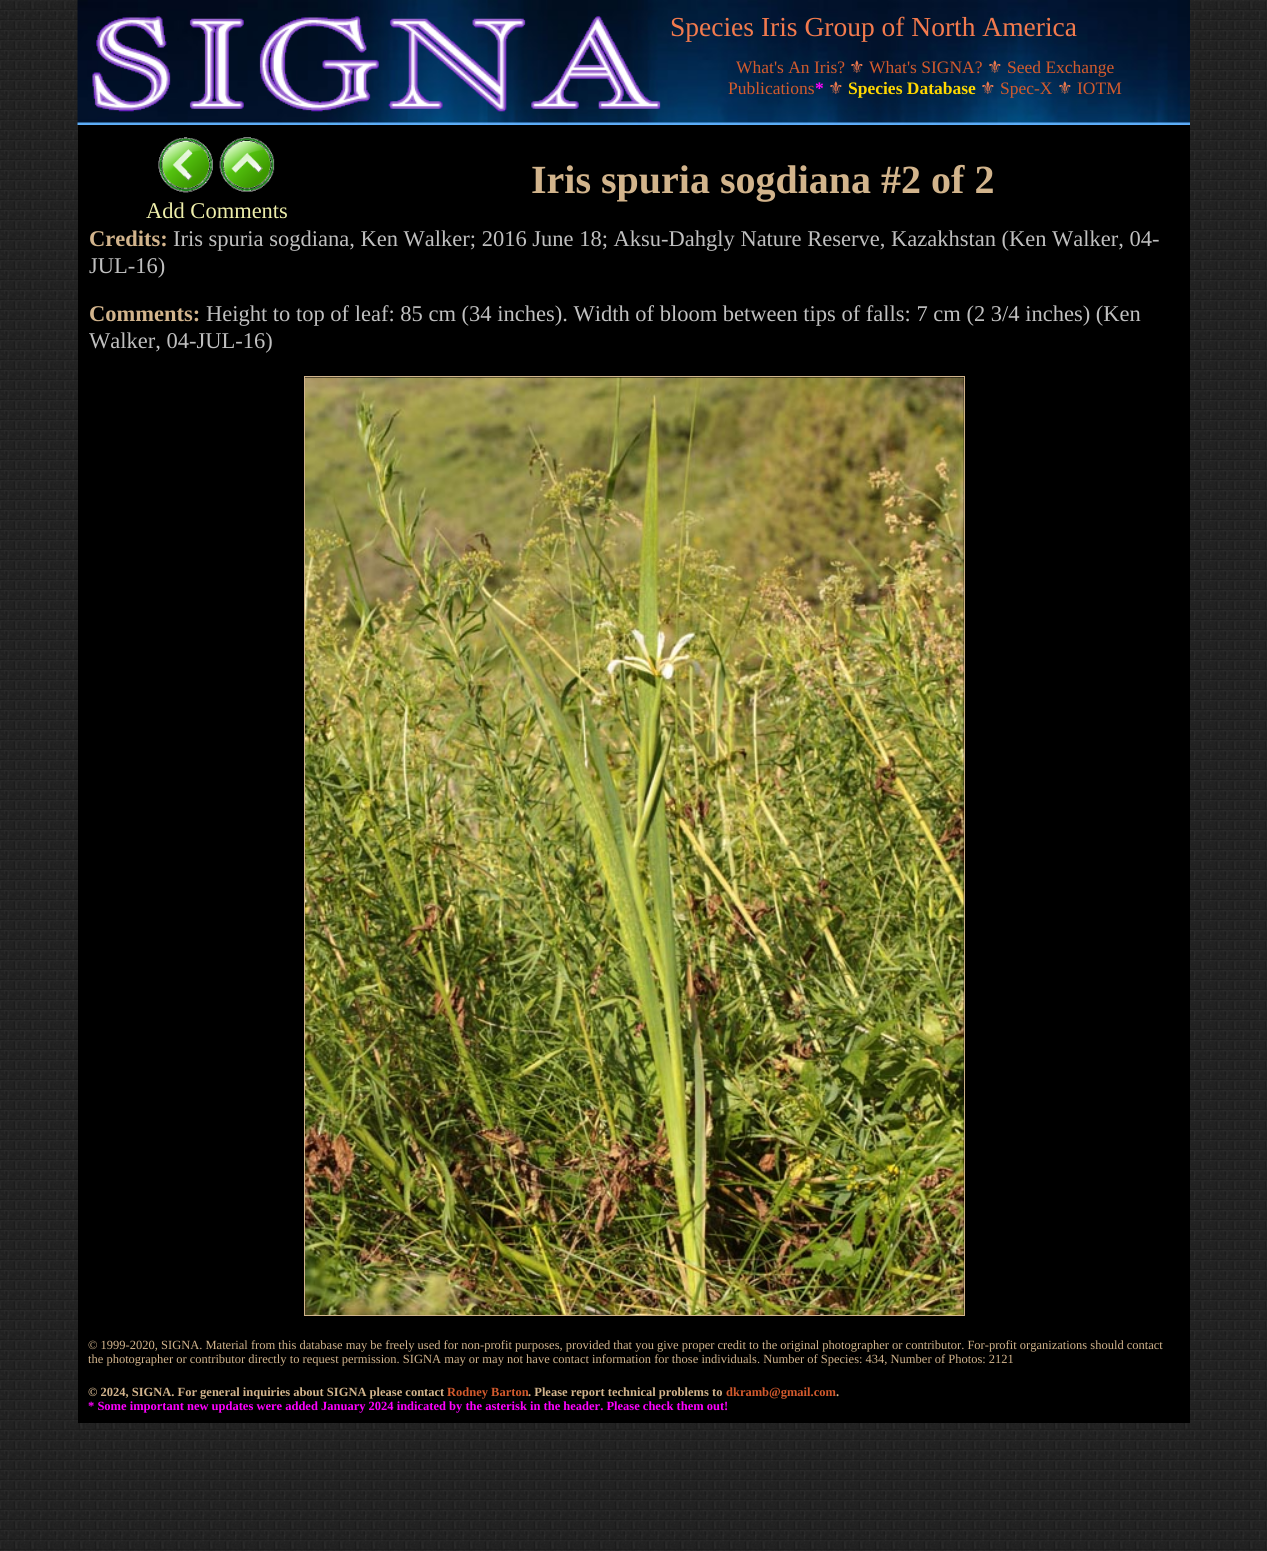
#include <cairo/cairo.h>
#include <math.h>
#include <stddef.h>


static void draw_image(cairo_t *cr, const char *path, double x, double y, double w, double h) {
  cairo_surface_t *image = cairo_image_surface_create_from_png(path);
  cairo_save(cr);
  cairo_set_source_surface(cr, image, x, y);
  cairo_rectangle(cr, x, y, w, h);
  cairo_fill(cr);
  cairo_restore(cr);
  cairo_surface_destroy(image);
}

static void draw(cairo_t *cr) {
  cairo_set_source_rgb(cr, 1, 1, 1);
  cairo_paint(cr);
  draw_image(cr, "images/1.png", 0, 0, 1267, 1551);
  draw_image(cr, "images/2.png", 77, 0, 1113, 125);
  draw_image(cr, "images/3.png", 92, 16, 569, 96);
  cairo_set_source_rgb(cr, 0, 0, 0);
  cairo_rectangle(cr, 78, 125, 1112, 1298);
  cairo_fill(cr);
  draw_image(cr, "images/4.png", 158, 137, 55, 56);
  draw_image(cr, "images/5.png", 219, 137, 56, 55);
  cairo_rectangle(cr, 304.5, 376.5, 660, 939);
  cairo_set_source_rgb(cr, 210 / 255.0, 180 / 255.0, 140 / 255.0);
  cairo_set_line_width(cr, 1);
  cairo_stroke(cr);
  draw_image(cr, "images/6.png", 305, 377, 659, 938);
  cairo_select_font_face(cr, "Liberation Serif", CAIRO_FONT_SLANT_NORMAL, CAIRO_FONT_WEIGHT_NORMAL);
  cairo_set_font_size(cr, 27.5);
  cairo_set_source_rgb(cr, 243 / 255.0, 122 / 255.0, 77 / 255.0);
  cairo_move_to(cr, 670, 36);
  cairo_show_text(cr, "Species Iris Group of North America");
  cairo_set_font_size(cr, 17.5);
  cairo_set_source_rgb(cr, 211 / 255.0, 90 / 255.0, 45 / 255.0);
  cairo_move_to(cr, 736, 73);
  cairo_show_text(cr, "What's An Iris?");
  cairo_select_font_face(cr, "DejaVu Sans", CAIRO_FONT_SLANT_NORMAL, CAIRO_FONT_WEIGHT_NORMAL);
  cairo_set_source_rgb(cr, 243 / 255.0, 122 / 255.0, 77 / 255.0);
  cairo_move_to(cr, 849, 73);
  cairo_show_text(cr, "⚜");
  cairo_select_font_face(cr, "Liberation Serif", CAIRO_FONT_SLANT_NORMAL, CAIRO_FONT_WEIGHT_NORMAL);
  cairo_set_source_rgb(cr, 211 / 255.0, 90 / 255.0, 45 / 255.0);
  cairo_move_to(cr, 869, 73);
  cairo_show_text(cr, "What's SIGNA?");
  cairo_select_font_face(cr, "DejaVu Sans", CAIRO_FONT_SLANT_NORMAL, CAIRO_FONT_WEIGHT_NORMAL);
  cairo_set_source_rgb(cr, 243 / 255.0, 122 / 255.0, 77 / 255.0);
  cairo_move_to(cr, 987, 73);
  cairo_show_text(cr, "⚜");
  cairo_select_font_face(cr, "Liberation Serif", CAIRO_FONT_SLANT_NORMAL, CAIRO_FONT_WEIGHT_NORMAL);
  cairo_set_source_rgb(cr, 211 / 255.0, 90 / 255.0, 45 / 255.0);
  cairo_move_to(cr, 1007, 73);
  cairo_show_text(cr, "Seed Exchange");
  cairo_move_to(cr, 728, 94);
  cairo_show_text(cr, "Publications");
  cairo_select_font_face(cr, "Liberation Serif", CAIRO_FONT_SLANT_NORMAL, CAIRO_FONT_WEIGHT_BOLD);
  cairo_set_source_rgb(cr, 1, 0, 1);
  cairo_move_to(cr, 815, 94);
  cairo_show_text(cr, "*");
  cairo_select_font_face(cr, "DejaVu Sans", CAIRO_FONT_SLANT_NORMAL, CAIRO_FONT_WEIGHT_NORMAL);
  cairo_set_source_rgb(cr, 243 / 255.0, 122 / 255.0, 77 / 255.0);
  cairo_move_to(cr, 828, 94);
  cairo_show_text(cr, "⚜");
  cairo_select_font_face(cr, "Liberation Serif", CAIRO_FONT_SLANT_NORMAL, CAIRO_FONT_WEIGHT_BOLD);
  cairo_set_source_rgb(cr, 1, 215 / 255.0, 0);
  cairo_move_to(cr, 848, 94);
  cairo_show_text(cr, "Species Database");
  cairo_select_font_face(cr, "DejaVu Sans", CAIRO_FONT_SLANT_NORMAL, CAIRO_FONT_WEIGHT_NORMAL);
  cairo_set_source_rgb(cr, 243 / 255.0, 122 / 255.0, 77 / 255.0);
  cairo_move_to(cr, 980, 94);
  cairo_show_text(cr, "⚜");
  cairo_select_font_face(cr, "Liberation Serif", CAIRO_FONT_SLANT_NORMAL, CAIRO_FONT_WEIGHT_NORMAL);
  cairo_set_source_rgb(cr, 211 / 255.0, 90 / 255.0, 45 / 255.0);
  cairo_move_to(cr, 1000, 94);
  cairo_show_text(cr, "Spec-X");
  cairo_select_font_face(cr, "DejaVu Sans", CAIRO_FONT_SLANT_NORMAL, CAIRO_FONT_WEIGHT_NORMAL);
  cairo_set_source_rgb(cr, 243 / 255.0, 122 / 255.0, 77 / 255.0);
  cairo_move_to(cr, 1057, 94);
  cairo_show_text(cr, "⚜");
  cairo_select_font_face(cr, "Liberation Serif", CAIRO_FONT_SLANT_NORMAL, CAIRO_FONT_WEIGHT_NORMAL);
  cairo_set_source_rgb(cr, 211 / 255.0, 90 / 255.0, 45 / 255.0);
  cairo_move_to(cr, 1077, 94);
  cairo_show_text(cr, "IOTM");
  cairo_select_font_face(cr, "Liberation Serif", CAIRO_FONT_SLANT_NORMAL, CAIRO_FONT_WEIGHT_BOLD);
  cairo_set_font_size(cr, 40);
  cairo_set_source_rgb(cr, 210 / 255.0, 180 / 255.0, 140 / 255.0);
  cairo_move_to(cr, 531, 193);
  cairo_show_text(cr, "Iris spuria sogdiana #2 of 2");
  cairo_select_font_face(cr, "Liberation Serif", CAIRO_FONT_SLANT_NORMAL, CAIRO_FONT_WEIGHT_NORMAL);
  cairo_set_font_size(cr, 22.5);
  cairo_set_source_rgb(cr, 238 / 255.0, 238 / 255.0, 170 / 255.0);
  cairo_move_to(cr, 146, 218);
  cairo_show_text(cr, "Add Comments");
  cairo_select_font_face(cr, "Liberation Serif", CAIRO_FONT_SLANT_NORMAL, CAIRO_FONT_WEIGHT_BOLD);
  cairo_set_source_rgb(cr, 210 / 255.0, 180 / 255.0, 140 / 255.0);
  cairo_move_to(cr, 89, 246);
  cairo_show_text(cr, "Credits:");
  cairo_select_font_face(cr, "Liberation Serif", CAIRO_FONT_SLANT_NORMAL, CAIRO_FONT_WEIGHT_NORMAL);
  cairo_set_source_rgb(cr, 192 / 255.0, 192 / 255.0, 192 / 255.0);
  cairo_move_to(cr, 173, 246);
  cairo_show_text(cr, "Iris spuria sogdiana, Ken Walker; 2016 June 18; Aksu-Dahgly Nature Reserve, Kazakhstan (Ken Walker, 04-");
  cairo_move_to(cr, 89, 273);
  cairo_show_text(cr, "JUL-16)");
  cairo_select_font_face(cr, "Liberation Serif", CAIRO_FONT_SLANT_NORMAL, CAIRO_FONT_WEIGHT_BOLD);
  cairo_set_source_rgb(cr, 210 / 255.0, 180 / 255.0, 140 / 255.0);
  cairo_move_to(cr, 89, 321);
  cairo_show_text(cr, "Comments:");
  cairo_select_font_face(cr, "Liberation Serif", CAIRO_FONT_SLANT_NORMAL, CAIRO_FONT_WEIGHT_NORMAL);
  cairo_set_source_rgb(cr, 192 / 255.0, 192 / 255.0, 192 / 255.0);
  cairo_move_to(cr, 206, 321);
  cairo_show_text(cr, "Height to top of leaf: 85 cm (34 inches). Width of bloom between tips of falls: 7 cm (2 3/4 inches) (Ken");
  cairo_move_to(cr, 89, 348);
  cairo_show_text(cr, "Walker, 04-JUL-16)");
  cairo_set_font_size(cr, 12.5);
  cairo_set_source_rgb(cr, 210 / 255.0, 180 / 255.0, 140 / 255.0);
  cairo_move_to(cr, 88, 1349);
  cairo_show_text(cr, "© 1999-2020, SIGNA. Material from this database may be freely used for non-profit purposes, provided that you give proper credit to the original photographer or contributor. For-profit organizations should contact");
  cairo_move_to(cr, 88, 1363);
  cairo_show_text(cr, "the photographer or contributor directly to request permission. SIGNA may or may not have contact information for those individuals. Number of Species: 434, Number of Photos: 2121");
  cairo_select_font_face(cr, "Liberation Serif", CAIRO_FONT_SLANT_NORMAL, CAIRO_FONT_WEIGHT_BOLD);
  cairo_move_to(cr, 88, 1396);
  cairo_show_text(cr, "© 2024, SIGNA. For general inquiries about SIGNA please contact");
  cairo_set_source_rgb(cr, 211 / 255.0, 90 / 255.0, 45 / 255.0);
  cairo_move_to(cr, 447, 1396);
  cairo_show_text(cr, "Rodney Barton");
  cairo_set_source_rgb(cr, 210 / 255.0, 180 / 255.0, 140 / 255.0);
  cairo_move_to(cr, 528, 1396);
  cairo_show_text(cr, ". Please report technical problems to");
  cairo_set_source_rgb(cr, 211 / 255.0, 90 / 255.0, 45 / 255.0);
  cairo_move_to(cr, 726, 1396);
  cairo_show_text(cr, "dkramb@gmail.com");
  cairo_set_source_rgb(cr, 210 / 255.0, 180 / 255.0, 140 / 255.0);
  cairo_move_to(cr, 836, 1396);
  cairo_show_text(cr, ".");
  cairo_set_source_rgb(cr, 1, 0, 1);
  cairo_move_to(cr, 88, 1410);
  cairo_show_text(cr, "* Some important new updates were added January 2024 indicated by the asterisk in the header. Please check them out!");
}

int main(void) {
  cairo_surface_t *surface = cairo_image_surface_create(CAIRO_FORMAT_RGB24, 1267, 1551);
  cairo_t *cr = cairo_create(surface);
  cairo_font_options_t *options = cairo_font_options_create();
  cairo_font_options_set_hint_metrics(options, CAIRO_HINT_METRICS_OFF);
  cairo_font_options_set_hint_style(options, CAIRO_HINT_STYLE_NONE);
  cairo_set_font_options(cr, options);
  cairo_set_miter_limit(cr, 4);
  draw(cr);
  cairo_surface_write_to_png(surface, "out.png");
  cairo_font_options_destroy(options);
  cairo_destroy(cr);
  cairo_surface_destroy(surface);
  return 0;
}
